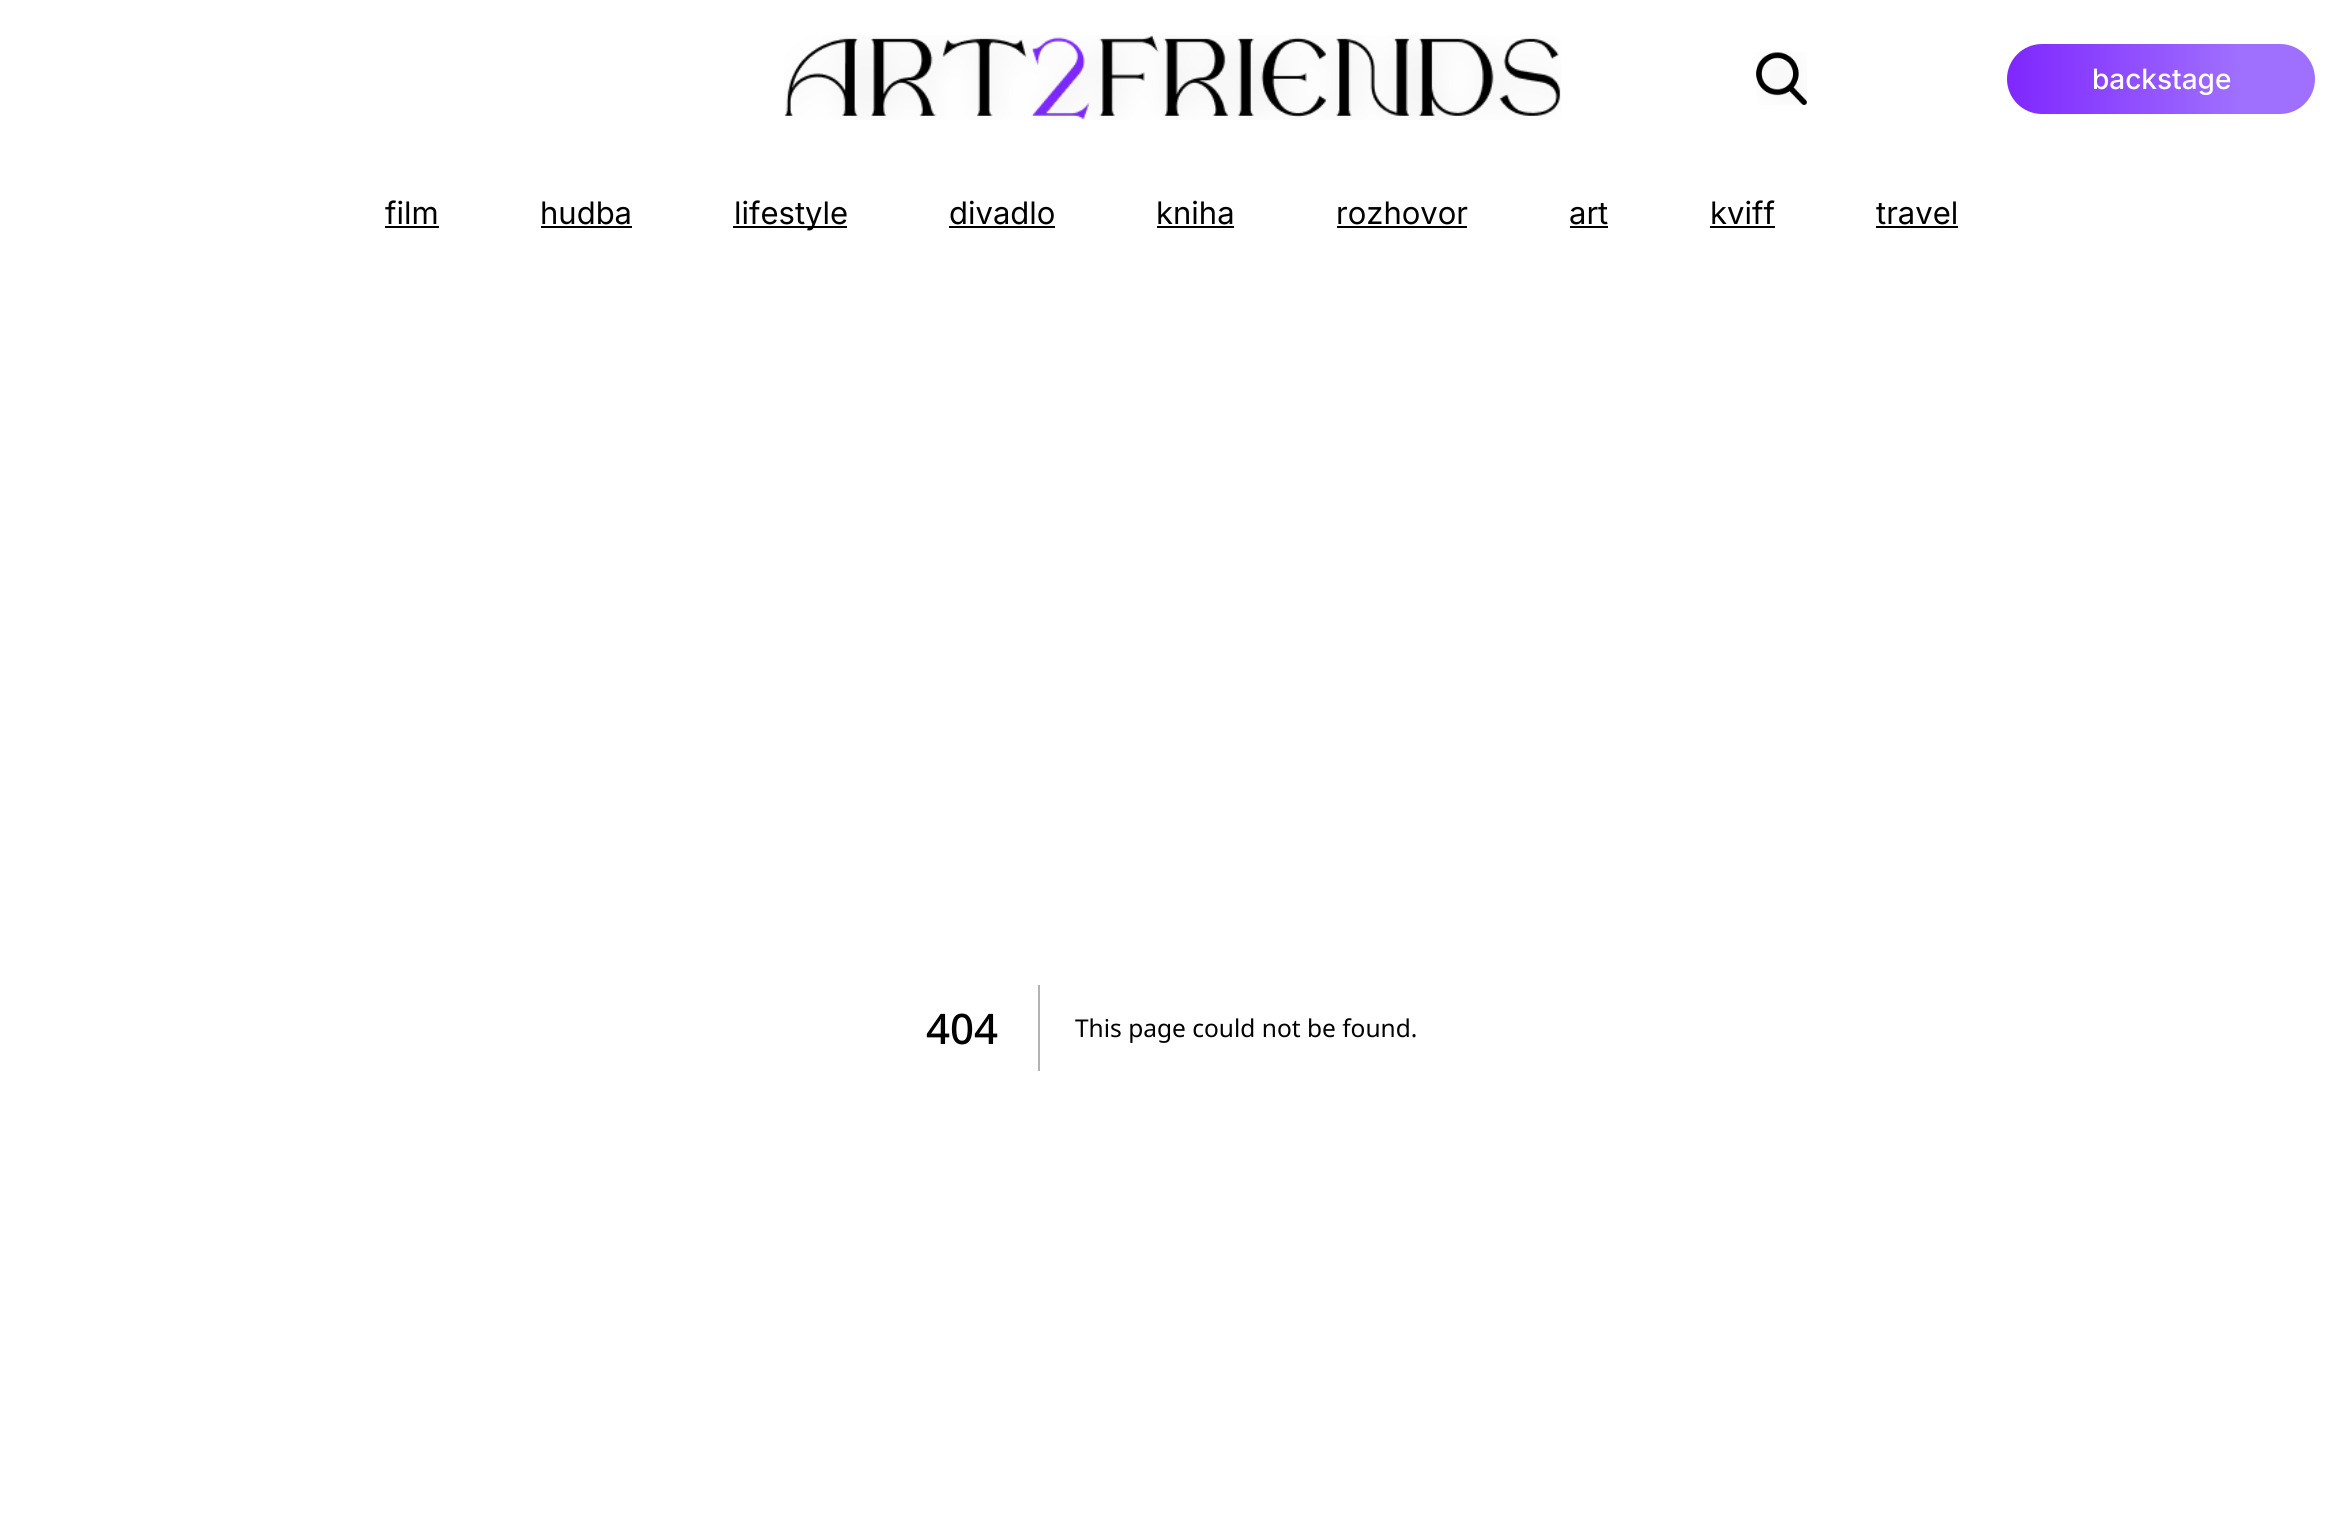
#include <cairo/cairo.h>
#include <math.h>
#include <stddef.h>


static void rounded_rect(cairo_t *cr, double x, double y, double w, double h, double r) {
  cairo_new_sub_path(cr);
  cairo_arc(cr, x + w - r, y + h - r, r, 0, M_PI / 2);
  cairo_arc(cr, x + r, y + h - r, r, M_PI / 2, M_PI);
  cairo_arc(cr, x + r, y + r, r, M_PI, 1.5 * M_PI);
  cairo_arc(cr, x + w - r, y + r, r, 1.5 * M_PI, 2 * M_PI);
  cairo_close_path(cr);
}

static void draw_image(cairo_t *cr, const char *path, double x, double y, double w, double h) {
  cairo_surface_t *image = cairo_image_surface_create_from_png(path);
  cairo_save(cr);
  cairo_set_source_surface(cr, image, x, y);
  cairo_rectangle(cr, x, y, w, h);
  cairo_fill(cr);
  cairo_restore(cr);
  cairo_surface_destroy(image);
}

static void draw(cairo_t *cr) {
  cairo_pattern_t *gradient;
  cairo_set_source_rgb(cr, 1, 1, 1);
  cairo_paint(cr);
  draw_image(cr, "images/1.png", 784, 35, 777, 85);
  draw_image(cr, "images/2.png", 1756, 52, 51, 53);
  gradient = cairo_pattern_create_linear(2007, 79, 2315, 79);
  cairo_pattern_add_color_stop_rgba(gradient, 0, 127 / 255.0, 39 / 255.0, 1, 1);
  cairo_pattern_add_color_stop_rgba(gradient, 0.76, 159 / 255.0, 112 / 255.0, 253 / 255.0, 1);
  cairo_set_source(cr, gradient);
  cairo_pattern_destroy(gradient);
  rounded_rect(cr, 2007, 44, 308, 70, 35);
  cairo_fill(cr);
  cairo_set_source_rgb(cr, 0, 0, 0);
  cairo_rectangle(cr, 385, 226, 54, 2);
  cairo_fill(cr);
  cairo_rectangle(cr, 541, 226, 91, 2);
  cairo_fill(cr);
  cairo_rectangle(cr, 733, 226, 114, 2);
  cairo_fill(cr);
  cairo_rectangle(cr, 949, 226, 106, 2);
  cairo_fill(cr);
  cairo_rectangle(cr, 1157, 226, 77, 2);
  cairo_fill(cr);
  cairo_rectangle(cr, 1337, 226, 130, 2);
  cairo_fill(cr);
  cairo_rectangle(cr, 1570, 226, 38, 2);
  cairo_fill(cr);
  cairo_rectangle(cr, 1710, 226, 65, 2);
  cairo_fill(cr);
  cairo_rectangle(cr, 1876, 226, 82, 2);
  cairo_fill(cr);
  cairo_set_source_rgb(cr, 179 / 255.0, 179 / 255.0, 179 / 255.0);
  cairo_rectangle(cr, 1038, 985, 2, 86);
  cairo_fill(cr);
  cairo_select_font_face(cr, "Inter Medium", CAIRO_FONT_SLANT_NORMAL, CAIRO_FONT_WEIGHT_NORMAL);
  cairo_set_font_size(cr, 28);
  cairo_set_source_rgb(cr, 1, 1, 1);
  cairo_move_to(cr, 2092, 89);
  cairo_show_text(cr, "backstage");
  cairo_select_font_face(cr, "Inter", CAIRO_FONT_SLANT_NORMAL, CAIRO_FONT_WEIGHT_NORMAL);
  cairo_set_font_size(cr, 31);
  cairo_set_source_rgb(cr, 0, 0, 0);
  cairo_move_to(cr, 385, 224);
  cairo_show_text(cr, "film");
  cairo_move_to(cr, 540, 224);
  cairo_show_text(cr, "hudba");
  cairo_move_to(cr, 734, 224);
  cairo_show_text(cr, "lifestyle");
  cairo_move_to(cr, 949, 224);
  cairo_show_text(cr, "divadlo");
  cairo_move_to(cr, 1156, 224);
  cairo_show_text(cr, "kniha");
  cairo_move_to(cr, 1336, 224);
  cairo_show_text(cr, "rozhovor");
  cairo_move_to(cr, 1569, 224);
  cairo_show_text(cr, "art");
  cairo_move_to(cr, 1710, 224);
  cairo_show_text(cr, "kviff");
  cairo_move_to(cr, 1876, 224);
  cairo_show_text(cr, "travel");
  cairo_select_font_face(cr, "Noto Sans Medium", CAIRO_FONT_SLANT_NORMAL, CAIRO_FONT_WEIGHT_NORMAL);
  cairo_set_font_size(cr, 42);
  cairo_move_to(cr, 926, 1044);
  cairo_show_text(cr, "404");
  cairo_select_font_face(cr, "Noto Sans", CAIRO_FONT_SLANT_NORMAL, CAIRO_FONT_WEIGHT_NORMAL);
  cairo_set_font_size(cr, 24.5);
  cairo_move_to(cr, 1075, 1037);
  cairo_show_text(cr, "This page could not be found.");
}

int main(void) {
  cairo_surface_t *surface = cairo_image_surface_create(CAIRO_FORMAT_RGB24, 2343, 1513);
  cairo_t *cr = cairo_create(surface);
  cairo_font_options_t *options = cairo_font_options_create();
  cairo_font_options_set_hint_metrics(options, CAIRO_HINT_METRICS_OFF);
  cairo_font_options_set_hint_style(options, CAIRO_HINT_STYLE_NONE);
  cairo_set_font_options(cr, options);
  cairo_set_miter_limit(cr, 4);
  draw(cr);
  cairo_surface_write_to_png(surface, "out.png");
  cairo_font_options_destroy(options);
  cairo_destroy(cr);
  cairo_surface_destroy(surface);
  return 0;
}
